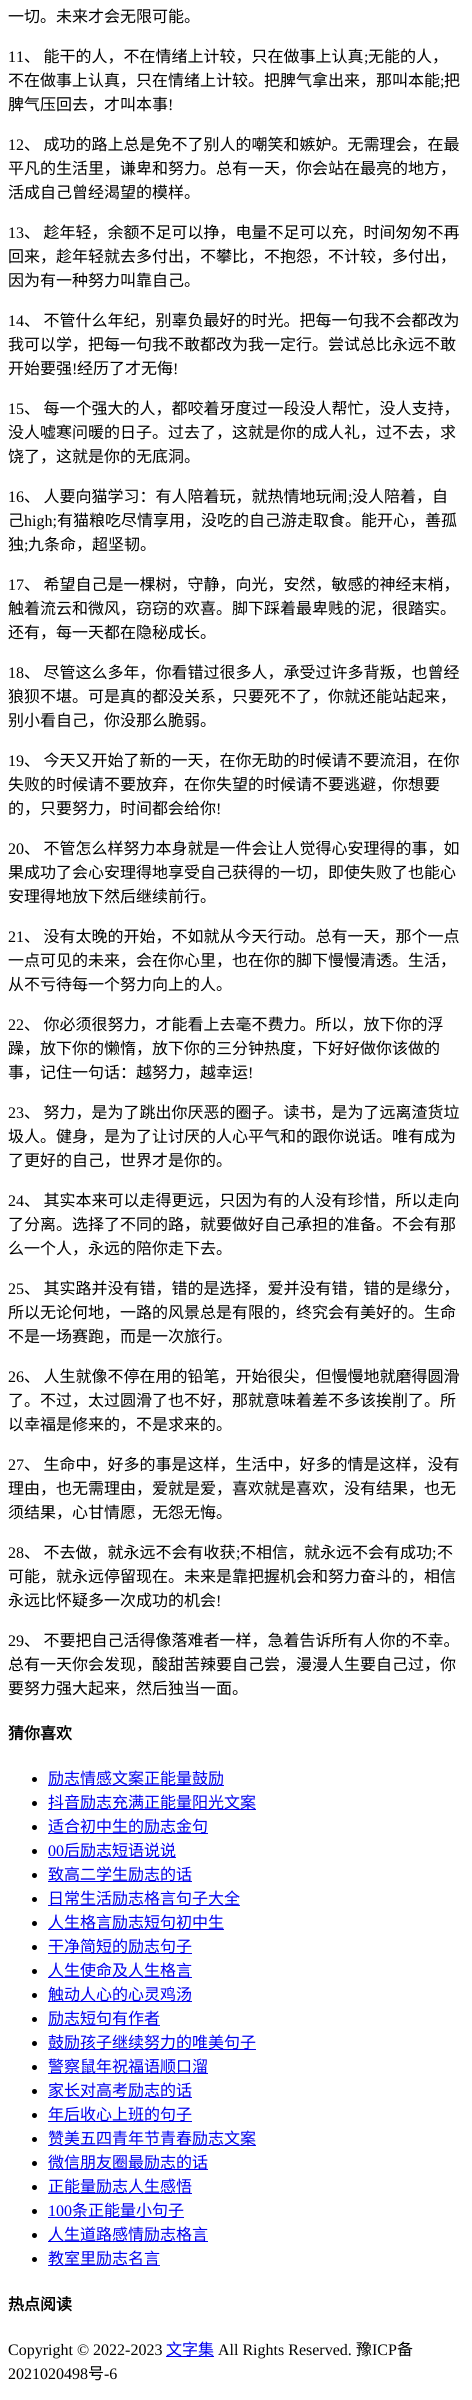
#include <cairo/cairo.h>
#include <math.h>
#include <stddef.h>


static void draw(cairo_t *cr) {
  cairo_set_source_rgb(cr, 1, 1, 1);
  cairo_paint(cr);
  cairo_set_source_rgb(cr, 0, 0, 0);
  cairo_arc(cr, 34.5, 1779.5, 2.5, 0, 2 * M_PI);
  cairo_fill(cr);
  cairo_set_source_rgb(cr, 0, 0, 238 / 255.0);
  cairo_rectangle(cr, 48, 1785, 176, 1);
  cairo_fill(cr);
  cairo_set_source_rgb(cr, 0, 0, 0);
  cairo_arc(cr, 34.5, 1803.5, 2.5, 0, 2 * M_PI);
  cairo_fill(cr);
  cairo_set_source_rgb(cr, 0, 0, 238 / 255.0);
  cairo_rectangle(cr, 48, 1809, 208, 1);
  cairo_fill(cr);
  cairo_set_source_rgb(cr, 0, 0, 0);
  cairo_arc(cr, 34.5, 1827.5, 2.5, 0, 2 * M_PI);
  cairo_fill(cr);
  cairo_set_source_rgb(cr, 0, 0, 238 / 255.0);
  cairo_rectangle(cr, 48, 1833, 160, 1);
  cairo_fill(cr);
  cairo_set_source_rgb(cr, 0, 0, 0);
  cairo_arc(cr, 34.5, 1851.5, 2.5, 0, 2 * M_PI);
  cairo_fill(cr);
  cairo_set_source_rgb(cr, 0, 0, 238 / 255.0);
  cairo_rectangle(cr, 48, 1857, 128, 1);
  cairo_fill(cr);
  cairo_set_source_rgb(cr, 0, 0, 0);
  cairo_arc(cr, 34.5, 1875.5, 2.5, 0, 2 * M_PI);
  cairo_fill(cr);
  cairo_set_source_rgb(cr, 0, 0, 238 / 255.0);
  cairo_rectangle(cr, 48, 1881, 144, 1);
  cairo_fill(cr);
  cairo_set_source_rgb(cr, 0, 0, 0);
  cairo_arc(cr, 34.5, 1899.5, 2.5, 0, 2 * M_PI);
  cairo_fill(cr);
  cairo_set_source_rgb(cr, 0, 0, 238 / 255.0);
  cairo_rectangle(cr, 48, 1905, 192, 1);
  cairo_fill(cr);
  cairo_set_source_rgb(cr, 0, 0, 0);
  cairo_arc(cr, 34.5, 1923.5, 2.5, 0, 2 * M_PI);
  cairo_fill(cr);
  cairo_set_source_rgb(cr, 0, 0, 238 / 255.0);
  cairo_rectangle(cr, 48, 1929, 176, 1);
  cairo_fill(cr);
  cairo_set_source_rgb(cr, 0, 0, 0);
  cairo_arc(cr, 34.5, 1947.5, 2.5, 0, 2 * M_PI);
  cairo_fill(cr);
  cairo_set_source_rgb(cr, 0, 0, 238 / 255.0);
  cairo_rectangle(cr, 48, 1953, 144, 1);
  cairo_fill(cr);
  cairo_set_source_rgb(cr, 0, 0, 0);
  cairo_arc(cr, 34.5, 1971.5, 2.5, 0, 2 * M_PI);
  cairo_fill(cr);
  cairo_set_source_rgb(cr, 0, 0, 238 / 255.0);
  cairo_rectangle(cr, 48, 1977, 144, 1);
  cairo_fill(cr);
  cairo_set_source_rgb(cr, 0, 0, 0);
  cairo_arc(cr, 34.5, 1995.5, 2.5, 0, 2 * M_PI);
  cairo_fill(cr);
  cairo_set_source_rgb(cr, 0, 0, 238 / 255.0);
  cairo_rectangle(cr, 48, 2001, 144, 1);
  cairo_fill(cr);
  cairo_set_source_rgb(cr, 0, 0, 0);
  cairo_arc(cr, 34.5, 2019.5, 2.5, 0, 2 * M_PI);
  cairo_fill(cr);
  cairo_set_source_rgb(cr, 0, 0, 238 / 255.0);
  cairo_rectangle(cr, 48, 2025, 112, 1);
  cairo_fill(cr);
  cairo_set_source_rgb(cr, 0, 0, 0);
  cairo_arc(cr, 34.5, 2043.5, 2.5, 0, 2 * M_PI);
  cairo_fill(cr);
  cairo_set_source_rgb(cr, 0, 0, 238 / 255.0);
  cairo_rectangle(cr, 48, 2049, 208, 1);
  cairo_fill(cr);
  cairo_set_source_rgb(cr, 0, 0, 0);
  cairo_arc(cr, 34.5, 2067.5, 2.5, 0, 2 * M_PI);
  cairo_fill(cr);
  cairo_set_source_rgb(cr, 0, 0, 238 / 255.0);
  cairo_rectangle(cr, 48, 2073, 160, 1);
  cairo_fill(cr);
  cairo_set_source_rgb(cr, 0, 0, 0);
  cairo_arc(cr, 34.5, 2091.5, 2.5, 0, 2 * M_PI);
  cairo_fill(cr);
  cairo_set_source_rgb(cr, 0, 0, 238 / 255.0);
  cairo_rectangle(cr, 48, 2097, 144, 1);
  cairo_fill(cr);
  cairo_set_source_rgb(cr, 0, 0, 0);
  cairo_arc(cr, 34.5, 2115.5, 2.5, 0, 2 * M_PI);
  cairo_fill(cr);
  cairo_set_source_rgb(cr, 0, 0, 238 / 255.0);
  cairo_rectangle(cr, 48, 2121, 144, 1);
  cairo_fill(cr);
  cairo_set_source_rgb(cr, 0, 0, 0);
  cairo_arc(cr, 34.5, 2139.5, 2.5, 0, 2 * M_PI);
  cairo_fill(cr);
  cairo_set_source_rgb(cr, 0, 0, 238 / 255.0);
  cairo_rectangle(cr, 48, 2145, 208, 1);
  cairo_fill(cr);
  cairo_set_source_rgb(cr, 0, 0, 0);
  cairo_arc(cr, 34.5, 2163.5, 2.5, 0, 2 * M_PI);
  cairo_fill(cr);
  cairo_set_source_rgb(cr, 0, 0, 238 / 255.0);
  cairo_rectangle(cr, 48, 2169, 160, 1);
  cairo_fill(cr);
  cairo_set_source_rgb(cr, 0, 0, 0);
  cairo_arc(cr, 34.5, 2187.5, 2.5, 0, 2 * M_PI);
  cairo_fill(cr);
  cairo_set_source_rgb(cr, 0, 0, 238 / 255.0);
  cairo_rectangle(cr, 48, 2193, 144, 1);
  cairo_fill(cr);
  cairo_set_source_rgb(cr, 0, 0, 0);
  cairo_arc(cr, 34.5, 2211.5, 2.5, 0, 2 * M_PI);
  cairo_fill(cr);
  cairo_set_source_rgb(cr, 0, 0, 238 / 255.0);
  cairo_rectangle(cr, 48, 2217, 136, 1);
  cairo_fill(cr);
  cairo_set_source_rgb(cr, 0, 0, 0);
  cairo_arc(cr, 34.5, 2235.5, 2.5, 0, 2 * M_PI);
  cairo_fill(cr);
  cairo_set_source_rgb(cr, 0, 0, 238 / 255.0);
  cairo_rectangle(cr, 48, 2241, 160, 1);
  cairo_fill(cr);
  cairo_set_source_rgb(cr, 0, 0, 0);
  cairo_arc(cr, 34.5, 2259.5, 2.5, 0, 2 * M_PI);
  cairo_fill(cr);
  cairo_set_source_rgb(cr, 0, 0, 238 / 255.0);
  cairo_rectangle(cr, 48, 2265, 112, 1);
  cairo_fill(cr);
  cairo_rectangle(cr, 166, 2356, 48, 1);
  cairo_fill(cr);
  cairo_select_font_face(cr, "Noto Sans CJK SC", CAIRO_FONT_SLANT_NORMAL, CAIRO_FONT_WEIGHT_NORMAL);
  cairo_set_font_size(cr, 16);
  cairo_set_source_rgb(cr, 0, 0, 0);
  cairo_move_to(cr, 8, 22);
  cairo_show_text(cr, "一切。未来才会无限可能。");
  cairo_select_font_face(cr, "Liberation Serif", CAIRO_FONT_SLANT_NORMAL, CAIRO_FONT_WEIGHT_NORMAL);
  cairo_move_to(cr, 8, 62);
  cairo_show_text(cr, "11");
  cairo_select_font_face(cr, "Noto Sans CJK SC", CAIRO_FONT_SLANT_NORMAL, CAIRO_FONT_WEIGHT_NORMAL);
  cairo_move_to(cr, 24, 62);
  cairo_show_text(cr, "、 能干的人，不在情绪上计较，只在做事上认真");
  cairo_select_font_face(cr, "Liberation Serif", CAIRO_FONT_SLANT_NORMAL, CAIRO_FONT_WEIGHT_NORMAL);
  cairo_move_to(cr, 364, 62);
  cairo_show_text(cr, ";");
  cairo_select_font_face(cr, "Noto Sans CJK SC", CAIRO_FONT_SLANT_NORMAL, CAIRO_FONT_WEIGHT_NORMAL);
  cairo_move_to(cr, 368, 62);
  cairo_show_text(cr, "无能的人，");
  cairo_move_to(cr, 8, 86);
  cairo_show_text(cr, "不在做事上认真，只在情绪上计较。把脾气拿出来，那叫本能");
  cairo_select_font_face(cr, "Liberation Serif", CAIRO_FONT_SLANT_NORMAL, CAIRO_FONT_WEIGHT_NORMAL);
  cairo_move_to(cr, 440, 86);
  cairo_show_text(cr, ";");
  cairo_select_font_face(cr, "Noto Sans CJK SC", CAIRO_FONT_SLANT_NORMAL, CAIRO_FONT_WEIGHT_NORMAL);
  cairo_move_to(cr, 444, 86);
  cairo_show_text(cr, "把");
  cairo_move_to(cr, 8, 110);
  cairo_show_text(cr, "脾气压回去，才叫本事");
  cairo_select_font_face(cr, "Liberation Serif", CAIRO_FONT_SLANT_NORMAL, CAIRO_FONT_WEIGHT_NORMAL);
  cairo_move_to(cr, 168, 110);
  cairo_show_text(cr, "!");
  cairo_move_to(cr, 8, 150);
  cairo_show_text(cr, "12");
  cairo_select_font_face(cr, "Noto Sans CJK SC", CAIRO_FONT_SLANT_NORMAL, CAIRO_FONT_WEIGHT_NORMAL);
  cairo_move_to(cr, 24, 150);
  cairo_show_text(cr, "、 成功的路上总是免不了别人的嘲笑和嫉妒。无需理会，在最");
  cairo_move_to(cr, 8, 174);
  cairo_show_text(cr, "平凡的生活里，谦卑和努力。总有一天，你会站在最亮的地方，");
  cairo_move_to(cr, 8, 198);
  cairo_show_text(cr, "活成自己曾经渴望的模样。");
  cairo_select_font_face(cr, "Liberation Serif", CAIRO_FONT_SLANT_NORMAL, CAIRO_FONT_WEIGHT_NORMAL);
  cairo_move_to(cr, 8, 238);
  cairo_show_text(cr, "13");
  cairo_select_font_face(cr, "Noto Sans CJK SC", CAIRO_FONT_SLANT_NORMAL, CAIRO_FONT_WEIGHT_NORMAL);
  cairo_move_to(cr, 24, 238);
  cairo_show_text(cr, "、 趁年轻，余额不足可以挣，电量不足可以充，时间匆匆不再");
  cairo_move_to(cr, 8, 262);
  cairo_show_text(cr, "回来，趁年轻就去多付出，不攀比，不抱怨，不计较，多付出，");
  cairo_move_to(cr, 8, 286);
  cairo_show_text(cr, "因为有一种努力叫靠自己。");
  cairo_select_font_face(cr, "Liberation Serif", CAIRO_FONT_SLANT_NORMAL, CAIRO_FONT_WEIGHT_NORMAL);
  cairo_move_to(cr, 8, 326);
  cairo_show_text(cr, "14");
  cairo_select_font_face(cr, "Noto Sans CJK SC", CAIRO_FONT_SLANT_NORMAL, CAIRO_FONT_WEIGHT_NORMAL);
  cairo_move_to(cr, 24, 326);
  cairo_show_text(cr, "、 不管什么年纪，别辜负最好的时光。把每一句我不会都改为");
  cairo_move_to(cr, 8, 350);
  cairo_show_text(cr, "我可以学，把每一句我不敢都改为我一定行。尝试总比永远不敢");
  cairo_move_to(cr, 8, 374);
  cairo_show_text(cr, "开始要强");
  cairo_select_font_face(cr, "Liberation Serif", CAIRO_FONT_SLANT_NORMAL, CAIRO_FONT_WEIGHT_NORMAL);
  cairo_move_to(cr, 72, 374);
  cairo_show_text(cr, "!");
  cairo_select_font_face(cr, "Noto Sans CJK SC", CAIRO_FONT_SLANT_NORMAL, CAIRO_FONT_WEIGHT_NORMAL);
  cairo_move_to(cr, 77, 374);
  cairo_show_text(cr, "经历了才无侮");
  cairo_select_font_face(cr, "Liberation Serif", CAIRO_FONT_SLANT_NORMAL, CAIRO_FONT_WEIGHT_NORMAL);
  cairo_move_to(cr, 173, 374);
  cairo_show_text(cr, "!");
  cairo_move_to(cr, 8, 414);
  cairo_show_text(cr, "15");
  cairo_select_font_face(cr, "Noto Sans CJK SC", CAIRO_FONT_SLANT_NORMAL, CAIRO_FONT_WEIGHT_NORMAL);
  cairo_move_to(cr, 24, 414);
  cairo_show_text(cr, "、 每一个强大的人，都咬着牙度过一段没人帮忙，没人支持，");
  cairo_move_to(cr, 8, 438);
  cairo_show_text(cr, "没人嘘寒问暖的日子。过去了，这就是你的成人礼，过不去，求");
  cairo_move_to(cr, 8, 462);
  cairo_show_text(cr, "饶了，这就是你的无底洞。");
  cairo_select_font_face(cr, "Liberation Serif", CAIRO_FONT_SLANT_NORMAL, CAIRO_FONT_WEIGHT_NORMAL);
  cairo_move_to(cr, 8, 502);
  cairo_show_text(cr, "16");
  cairo_select_font_face(cr, "Noto Sans CJK SC", CAIRO_FONT_SLANT_NORMAL, CAIRO_FONT_WEIGHT_NORMAL);
  cairo_move_to(cr, 24, 502);
  cairo_show_text(cr, "、 人要向猫学习：有人陪着玩，就热情地玩闹");
  cairo_select_font_face(cr, "Liberation Serif", CAIRO_FONT_SLANT_NORMAL, CAIRO_FONT_WEIGHT_NORMAL);
  cairo_move_to(cr, 348, 502);
  cairo_show_text(cr, ";");
  cairo_select_font_face(cr, "Noto Sans CJK SC", CAIRO_FONT_SLANT_NORMAL, CAIRO_FONT_WEIGHT_NORMAL);
  cairo_move_to(cr, 352, 502);
  cairo_show_text(cr, "没人陪着，自");
  cairo_move_to(cr, 8, 526);
  cairo_show_text(cr, "己");
  cairo_select_font_face(cr, "Liberation Serif", CAIRO_FONT_SLANT_NORMAL, CAIRO_FONT_WEIGHT_NORMAL);
  cairo_move_to(cr, 24, 526);
  cairo_show_text(cr, "high;");
  cairo_select_font_face(cr, "Noto Sans CJK SC", CAIRO_FONT_SLANT_NORMAL, CAIRO_FONT_WEIGHT_NORMAL);
  cairo_move_to(cr, 57, 526);
  cairo_show_text(cr, "有猫粮吃尽情享用，没吃的自己游走取食。能开心，善孤");
  cairo_move_to(cr, 8, 550);
  cairo_show_text(cr, "独");
  cairo_select_font_face(cr, "Liberation Serif", CAIRO_FONT_SLANT_NORMAL, CAIRO_FONT_WEIGHT_NORMAL);
  cairo_move_to(cr, 24, 550);
  cairo_show_text(cr, ";");
  cairo_select_font_face(cr, "Noto Sans CJK SC", CAIRO_FONT_SLANT_NORMAL, CAIRO_FONT_WEIGHT_NORMAL);
  cairo_move_to(cr, 28, 550);
  cairo_show_text(cr, "九条命，超坚韧。");
  cairo_select_font_face(cr, "Liberation Serif", CAIRO_FONT_SLANT_NORMAL, CAIRO_FONT_WEIGHT_NORMAL);
  cairo_move_to(cr, 8, 590);
  cairo_show_text(cr, "17");
  cairo_select_font_face(cr, "Noto Sans CJK SC", CAIRO_FONT_SLANT_NORMAL, CAIRO_FONT_WEIGHT_NORMAL);
  cairo_move_to(cr, 24, 590);
  cairo_show_text(cr, "、 希望自己是一棵树，守静，向光，安然，敏感的神经末梢，");
  cairo_move_to(cr, 8, 614);
  cairo_show_text(cr, "触着流云和微风，窃窃的欢喜。脚下踩着最卑贱的泥，很踏实。");
  cairo_move_to(cr, 8, 638);
  cairo_show_text(cr, "还有，每一天都在隐秘成长。");
  cairo_select_font_face(cr, "Liberation Serif", CAIRO_FONT_SLANT_NORMAL, CAIRO_FONT_WEIGHT_NORMAL);
  cairo_move_to(cr, 8, 678);
  cairo_show_text(cr, "18");
  cairo_select_font_face(cr, "Noto Sans CJK SC", CAIRO_FONT_SLANT_NORMAL, CAIRO_FONT_WEIGHT_NORMAL);
  cairo_move_to(cr, 24, 678);
  cairo_show_text(cr, "、 尽管这么多年，你看错过很多人，承受过许多背叛，也曾经");
  cairo_move_to(cr, 8, 702);
  cairo_show_text(cr, "狼狈不堪。可是真的都没关系，只要死不了，你就还能站起来，");
  cairo_move_to(cr, 8, 726);
  cairo_show_text(cr, "别小看自己，你没那么脆弱。");
  cairo_select_font_face(cr, "Liberation Serif", CAIRO_FONT_SLANT_NORMAL, CAIRO_FONT_WEIGHT_NORMAL);
  cairo_move_to(cr, 8, 766);
  cairo_show_text(cr, "19");
  cairo_select_font_face(cr, "Noto Sans CJK SC", CAIRO_FONT_SLANT_NORMAL, CAIRO_FONT_WEIGHT_NORMAL);
  cairo_move_to(cr, 24, 766);
  cairo_show_text(cr, "、 今天又开始了新的一天，在你无助的时候请不要流泪，在你");
  cairo_move_to(cr, 8, 790);
  cairo_show_text(cr, "失败的时候请不要放弃，在你失望的时候请不要逃避，你想要");
  cairo_move_to(cr, 8, 814);
  cairo_show_text(cr, "的，只要努力，时间都会给你");
  cairo_select_font_face(cr, "Liberation Serif", CAIRO_FONT_SLANT_NORMAL, CAIRO_FONT_WEIGHT_NORMAL);
  cairo_move_to(cr, 216, 814);
  cairo_show_text(cr, "!");
  cairo_move_to(cr, 8, 854);
  cairo_show_text(cr, "20");
  cairo_select_font_face(cr, "Noto Sans CJK SC", CAIRO_FONT_SLANT_NORMAL, CAIRO_FONT_WEIGHT_NORMAL);
  cairo_move_to(cr, 24, 854);
  cairo_show_text(cr, "、 不管怎么样努力本身就是一件会让人觉得心安理得的事，如");
  cairo_move_to(cr, 8, 878);
  cairo_show_text(cr, "果成功了会心安理得地享受自己获得的一切，即使失败了也能心");
  cairo_move_to(cr, 8, 902);
  cairo_show_text(cr, "安理得地放下然后继续前行。");
  cairo_select_font_face(cr, "Liberation Serif", CAIRO_FONT_SLANT_NORMAL, CAIRO_FONT_WEIGHT_NORMAL);
  cairo_move_to(cr, 8, 942);
  cairo_show_text(cr, "21");
  cairo_select_font_face(cr, "Noto Sans CJK SC", CAIRO_FONT_SLANT_NORMAL, CAIRO_FONT_WEIGHT_NORMAL);
  cairo_move_to(cr, 24, 942);
  cairo_show_text(cr, "、 没有太晚的开始，不如就从今天行动。总有一天，那个一点");
  cairo_move_to(cr, 8, 966);
  cairo_show_text(cr, "一点可见的未来，会在你心里，也在你的脚下慢慢清透。生活，");
  cairo_move_to(cr, 8, 990);
  cairo_show_text(cr, "从不亏待每一个努力向上的人。");
  cairo_select_font_face(cr, "Liberation Serif", CAIRO_FONT_SLANT_NORMAL, CAIRO_FONT_WEIGHT_NORMAL);
  cairo_move_to(cr, 8, 1030);
  cairo_show_text(cr, "22");
  cairo_select_font_face(cr, "Noto Sans CJK SC", CAIRO_FONT_SLANT_NORMAL, CAIRO_FONT_WEIGHT_NORMAL);
  cairo_move_to(cr, 24, 1030);
  cairo_show_text(cr, "、 你必须很努力，才能看上去毫不费力。所以，放下你的浮");
  cairo_move_to(cr, 8, 1054);
  cairo_show_text(cr, "躁，放下你的懒惰，放下你的三分钟热度，下好好做你该做的");
  cairo_move_to(cr, 8, 1078);
  cairo_show_text(cr, "事，记住一句话：越努力，越幸运");
  cairo_select_font_face(cr, "Liberation Serif", CAIRO_FONT_SLANT_NORMAL, CAIRO_FONT_WEIGHT_NORMAL);
  cairo_move_to(cr, 248, 1078);
  cairo_show_text(cr, "!");
  cairo_move_to(cr, 8, 1118);
  cairo_show_text(cr, "23");
  cairo_select_font_face(cr, "Noto Sans CJK SC", CAIRO_FONT_SLANT_NORMAL, CAIRO_FONT_WEIGHT_NORMAL);
  cairo_move_to(cr, 24, 1118);
  cairo_show_text(cr, "、 努力，是为了跳出你厌恶的圈子。读书，是为了远离渣货垃");
  cairo_move_to(cr, 8, 1142);
  cairo_show_text(cr, "圾人。健身，是为了让讨厌的人心平气和的跟你说话。唯有成为");
  cairo_move_to(cr, 8, 1166);
  cairo_show_text(cr, "了更好的自己，世界才是你的。");
  cairo_select_font_face(cr, "Liberation Serif", CAIRO_FONT_SLANT_NORMAL, CAIRO_FONT_WEIGHT_NORMAL);
  cairo_move_to(cr, 8, 1206);
  cairo_show_text(cr, "24");
  cairo_select_font_face(cr, "Noto Sans CJK SC", CAIRO_FONT_SLANT_NORMAL, CAIRO_FONT_WEIGHT_NORMAL);
  cairo_move_to(cr, 24, 1206);
  cairo_show_text(cr, "、 其实本来可以走得更远，只因为有的人没有珍惜，所以走向");
  cairo_move_to(cr, 8, 1230);
  cairo_show_text(cr, "了分离。选择了不同的路，就要做好自己承担的准备。不会有那");
  cairo_move_to(cr, 8, 1254);
  cairo_show_text(cr, "么一个人，永远的陪你走下去。");
  cairo_select_font_face(cr, "Liberation Serif", CAIRO_FONT_SLANT_NORMAL, CAIRO_FONT_WEIGHT_NORMAL);
  cairo_move_to(cr, 8, 1294);
  cairo_show_text(cr, "25");
  cairo_select_font_face(cr, "Noto Sans CJK SC", CAIRO_FONT_SLANT_NORMAL, CAIRO_FONT_WEIGHT_NORMAL);
  cairo_move_to(cr, 24, 1294);
  cairo_show_text(cr, "、 其实路并没有错，错的是选择，爱并没有错，错的是缘分，");
  cairo_move_to(cr, 8, 1318);
  cairo_show_text(cr, "所以无论何地，一路的风景总是有限的，终究会有美好的。生命");
  cairo_move_to(cr, 8, 1342);
  cairo_show_text(cr, "不是一场赛跑，而是一次旅行。");
  cairo_select_font_face(cr, "Liberation Serif", CAIRO_FONT_SLANT_NORMAL, CAIRO_FONT_WEIGHT_NORMAL);
  cairo_move_to(cr, 8, 1382);
  cairo_show_text(cr, "26");
  cairo_select_font_face(cr, "Noto Sans CJK SC", CAIRO_FONT_SLANT_NORMAL, CAIRO_FONT_WEIGHT_NORMAL);
  cairo_move_to(cr, 24, 1382);
  cairo_show_text(cr, "、 人生就像不停在用的铅笔，开始很尖，但慢慢地就磨得圆滑");
  cairo_move_to(cr, 8, 1406);
  cairo_show_text(cr, "了。不过，太过圆滑了也不好，那就意味着差不多该挨削了。所");
  cairo_move_to(cr, 8, 1430);
  cairo_show_text(cr, "以幸福是修来的，不是求来的。");
  cairo_select_font_face(cr, "Liberation Serif", CAIRO_FONT_SLANT_NORMAL, CAIRO_FONT_WEIGHT_NORMAL);
  cairo_move_to(cr, 8, 1470);
  cairo_show_text(cr, "27");
  cairo_select_font_face(cr, "Noto Sans CJK SC", CAIRO_FONT_SLANT_NORMAL, CAIRO_FONT_WEIGHT_NORMAL);
  cairo_move_to(cr, 24, 1470);
  cairo_show_text(cr, "、 生命中，好多的事是这样，生活中，好多的情是这样，没有");
  cairo_move_to(cr, 8, 1494);
  cairo_show_text(cr, "理由，也无需理由，爱就是爱，喜欢就是喜欢，没有结果，也无");
  cairo_move_to(cr, 8, 1518);
  cairo_show_text(cr, "须结果，心甘情愿，无怨无悔。");
  cairo_select_font_face(cr, "Liberation Serif", CAIRO_FONT_SLANT_NORMAL, CAIRO_FONT_WEIGHT_NORMAL);
  cairo_move_to(cr, 8, 1558);
  cairo_show_text(cr, "28");
  cairo_select_font_face(cr, "Noto Sans CJK SC", CAIRO_FONT_SLANT_NORMAL, CAIRO_FONT_WEIGHT_NORMAL);
  cairo_move_to(cr, 24, 1558);
  cairo_show_text(cr, "、 不去做，就永远不会有收获");
  cairo_select_font_face(cr, "Liberation Serif", CAIRO_FONT_SLANT_NORMAL, CAIRO_FONT_WEIGHT_NORMAL);
  cairo_move_to(cr, 236, 1558);
  cairo_show_text(cr, ";");
  cairo_select_font_face(cr, "Noto Sans CJK SC", CAIRO_FONT_SLANT_NORMAL, CAIRO_FONT_WEIGHT_NORMAL);
  cairo_move_to(cr, 240, 1558);
  cairo_show_text(cr, "不相信，就永远不会有成功");
  cairo_select_font_face(cr, "Liberation Serif", CAIRO_FONT_SLANT_NORMAL, CAIRO_FONT_WEIGHT_NORMAL);
  cairo_move_to(cr, 432, 1558);
  cairo_show_text(cr, ";");
  cairo_select_font_face(cr, "Noto Sans CJK SC", CAIRO_FONT_SLANT_NORMAL, CAIRO_FONT_WEIGHT_NORMAL);
  cairo_move_to(cr, 437, 1558);
  cairo_show_text(cr, "不");
  cairo_move_to(cr, 8, 1582);
  cairo_show_text(cr, "可能，就永远停留现在。未来是靠把握机会和努力奋斗的，相信");
  cairo_move_to(cr, 8, 1606);
  cairo_show_text(cr, "永远比怀疑多一次成功的机会");
  cairo_select_font_face(cr, "Liberation Serif", CAIRO_FONT_SLANT_NORMAL, CAIRO_FONT_WEIGHT_NORMAL);
  cairo_move_to(cr, 216, 1606);
  cairo_show_text(cr, "!");
  cairo_move_to(cr, 8, 1646);
  cairo_show_text(cr, "29");
  cairo_select_font_face(cr, "Noto Sans CJK SC", CAIRO_FONT_SLANT_NORMAL, CAIRO_FONT_WEIGHT_NORMAL);
  cairo_move_to(cr, 24, 1646);
  cairo_show_text(cr, "、 不要把自己活得像落难者一样，急着告诉所有人你的不幸。");
  cairo_move_to(cr, 8, 1670);
  cairo_show_text(cr, "总有一天你会发现，酸甜苦辣要自己尝，漫漫人生要自己过，你");
  cairo_move_to(cr, 8, 1694);
  cairo_show_text(cr, "要努力强大起来，然后独当一面。");
  cairo_select_font_face(cr, "Noto Sans CJK SC", CAIRO_FONT_SLANT_NORMAL, CAIRO_FONT_WEIGHT_BOLD);
  cairo_move_to(cr, 8, 1739);
  cairo_show_text(cr, "猜你喜欢");
  cairo_select_font_face(cr, "Noto Sans CJK SC", CAIRO_FONT_SLANT_NORMAL, CAIRO_FONT_WEIGHT_NORMAL);
  cairo_set_source_rgb(cr, 0, 0, 238 / 255.0);
  cairo_move_to(cr, 48, 1784);
  cairo_show_text(cr, "励志情感文案正能量鼓励");
  cairo_move_to(cr, 48, 1808);
  cairo_show_text(cr, "抖音励志充满正能量阳光文案");
  cairo_move_to(cr, 48, 1832);
  cairo_show_text(cr, "适合初中生的励志金句");
  cairo_select_font_face(cr, "Liberation Serif", CAIRO_FONT_SLANT_NORMAL, CAIRO_FONT_WEIGHT_NORMAL);
  cairo_move_to(cr, 48, 1856);
  cairo_show_text(cr, "00");
  cairo_select_font_face(cr, "Noto Sans CJK SC", CAIRO_FONT_SLANT_NORMAL, CAIRO_FONT_WEIGHT_NORMAL);
  cairo_move_to(cr, 64, 1856);
  cairo_show_text(cr, "后励志短语说说");
  cairo_move_to(cr, 48, 1880);
  cairo_show_text(cr, "致高二学生励志的话");
  cairo_move_to(cr, 48, 1904);
  cairo_show_text(cr, "日常生活励志格言句子大全");
  cairo_move_to(cr, 48, 1928);
  cairo_show_text(cr, "人生格言励志短句初中生");
  cairo_move_to(cr, 48, 1952);
  cairo_show_text(cr, "干净简短的励志句子");
  cairo_move_to(cr, 48, 1976);
  cairo_show_text(cr, "人生使命及人生格言");
  cairo_move_to(cr, 48, 2000);
  cairo_show_text(cr, "触动人心的心灵鸡汤");
  cairo_move_to(cr, 48, 2024);
  cairo_show_text(cr, "励志短句有作者");
  cairo_move_to(cr, 48, 2048);
  cairo_show_text(cr, "鼓励孩子继续努力的唯美句子");
  cairo_move_to(cr, 48, 2072);
  cairo_show_text(cr, "警察鼠年祝福语顺口溜");
  cairo_move_to(cr, 48, 2096);
  cairo_show_text(cr, "家长对高考励志的话");
  cairo_move_to(cr, 48, 2120);
  cairo_show_text(cr, "年后收心上班的句子");
  cairo_move_to(cr, 48, 2144);
  cairo_show_text(cr, "赞美五四青年节青春励志文案");
  cairo_move_to(cr, 48, 2168);
  cairo_show_text(cr, "微信朋友圈最励志的话");
  cairo_move_to(cr, 48, 2192);
  cairo_show_text(cr, "正能量励志人生感悟");
  cairo_select_font_face(cr, "Liberation Serif", CAIRO_FONT_SLANT_NORMAL, CAIRO_FONT_WEIGHT_NORMAL);
  cairo_move_to(cr, 48, 2216);
  cairo_show_text(cr, "100");
  cairo_select_font_face(cr, "Noto Sans CJK SC", CAIRO_FONT_SLANT_NORMAL, CAIRO_FONT_WEIGHT_NORMAL);
  cairo_move_to(cr, 72, 2216);
  cairo_show_text(cr, "条正能量小句子");
  cairo_move_to(cr, 48, 2240);
  cairo_show_text(cr, "人生道路感情励志格言");
  cairo_move_to(cr, 48, 2264);
  cairo_show_text(cr, "教室里励志名言");
  cairo_select_font_face(cr, "Noto Sans CJK SC", CAIRO_FONT_SLANT_NORMAL, CAIRO_FONT_WEIGHT_BOLD);
  cairo_set_source_rgb(cr, 0, 0, 0);
  cairo_move_to(cr, 8, 2310);
  cairo_show_text(cr, "热点阅读");
  cairo_select_font_face(cr, "Liberation Serif", CAIRO_FONT_SLANT_NORMAL, CAIRO_FONT_WEIGHT_NORMAL);
  cairo_move_to(cr, 8, 2355);
  cairo_show_text(cr, "Copyright © 2022-2023");
  cairo_select_font_face(cr, "Noto Sans CJK SC", CAIRO_FONT_SLANT_NORMAL, CAIRO_FONT_WEIGHT_NORMAL);
  cairo_set_source_rgb(cr, 0, 0, 238 / 255.0);
  cairo_move_to(cr, 166, 2355);
  cairo_show_text(cr, "文字集");
  cairo_select_font_face(cr, "Liberation Serif", CAIRO_FONT_SLANT_NORMAL, CAIRO_FONT_WEIGHT_NORMAL);
  cairo_set_source_rgb(cr, 0, 0, 0);
  cairo_move_to(cr, 218, 2355);
  cairo_show_text(cr, "All Rights Reserved.");
  cairo_select_font_face(cr, "Noto Sans CJK SC", CAIRO_FONT_SLANT_NORMAL, CAIRO_FONT_WEIGHT_NORMAL);
  cairo_move_to(cr, 356, 2355);
  cairo_show_text(cr, "豫");
  cairo_select_font_face(cr, "Liberation Serif", CAIRO_FONT_SLANT_NORMAL, CAIRO_FONT_WEIGHT_NORMAL);
  cairo_move_to(cr, 372, 2355);
  cairo_show_text(cr, "ICP");
  cairo_select_font_face(cr, "Noto Sans CJK SC", CAIRO_FONT_SLANT_NORMAL, CAIRO_FONT_WEIGHT_NORMAL);
  cairo_move_to(cr, 397, 2355);
  cairo_show_text(cr, "备");
  cairo_select_font_face(cr, "Liberation Serif", CAIRO_FONT_SLANT_NORMAL, CAIRO_FONT_WEIGHT_NORMAL);
  cairo_move_to(cr, 8, 2379);
  cairo_show_text(cr, "2021020498");
  cairo_select_font_face(cr, "Noto Sans CJK SC", CAIRO_FONT_SLANT_NORMAL, CAIRO_FONT_WEIGHT_NORMAL);
  cairo_move_to(cr, 88, 2379);
  cairo_show_text(cr, "号");
  cairo_select_font_face(cr, "Liberation Serif", CAIRO_FONT_SLANT_NORMAL, CAIRO_FONT_WEIGHT_NORMAL);
  cairo_move_to(cr, 104, 2379);
  cairo_show_text(cr, "-6");
}

int main(void) {
  cairo_surface_t *surface = cairo_image_surface_create(CAIRO_FORMAT_RGB24, 472, 2400);
  cairo_t *cr = cairo_create(surface);
  cairo_font_options_t *options = cairo_font_options_create();
  cairo_font_options_set_hint_metrics(options, CAIRO_HINT_METRICS_OFF);
  cairo_font_options_set_hint_style(options, CAIRO_HINT_STYLE_NONE);
  cairo_set_font_options(cr, options);
  cairo_set_miter_limit(cr, 4);
  draw(cr);
  cairo_surface_write_to_png(surface, "out.png");
  cairo_font_options_destroy(options);
  cairo_destroy(cr);
  cairo_surface_destroy(surface);
  return 0;
}
